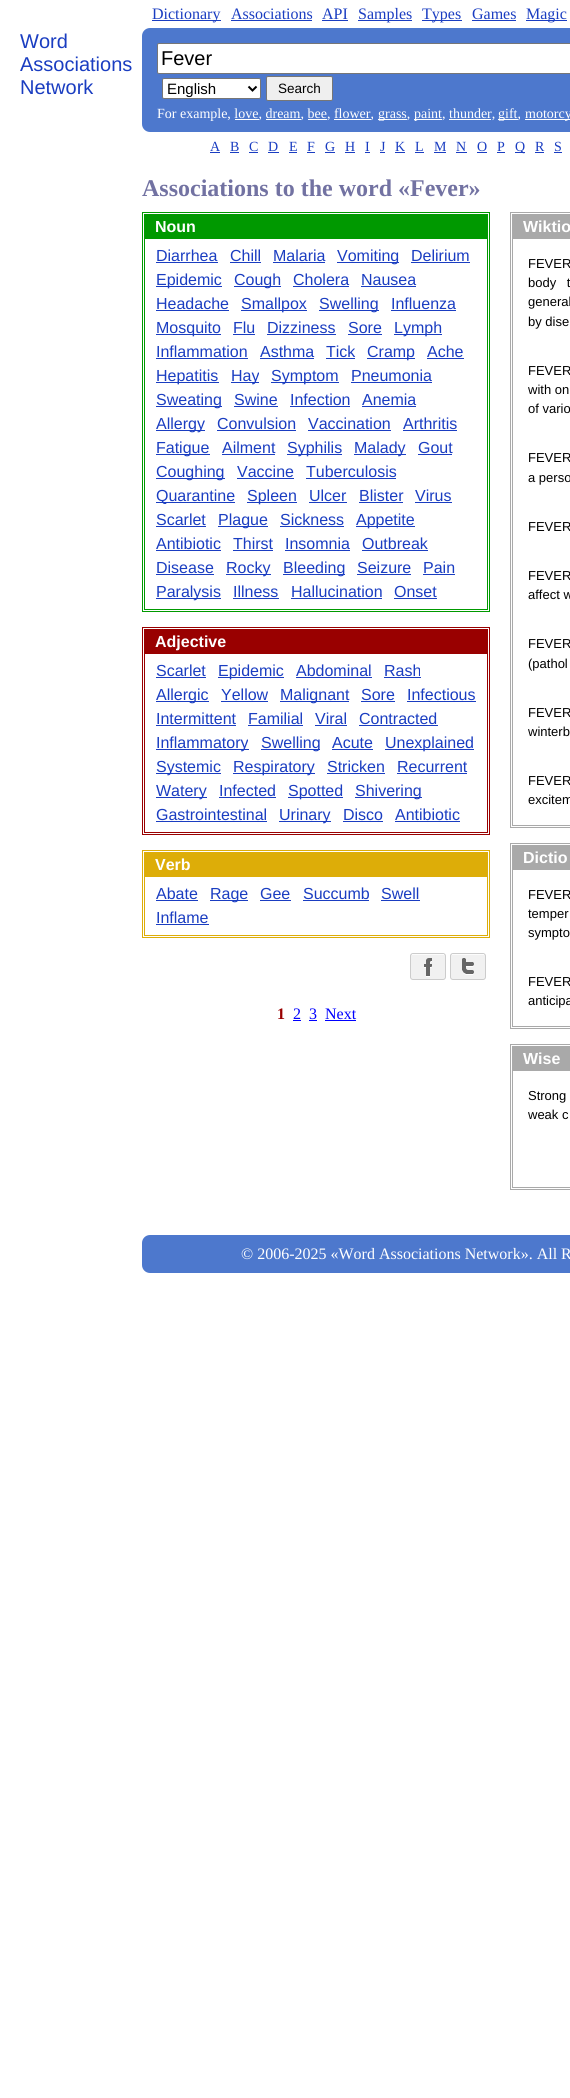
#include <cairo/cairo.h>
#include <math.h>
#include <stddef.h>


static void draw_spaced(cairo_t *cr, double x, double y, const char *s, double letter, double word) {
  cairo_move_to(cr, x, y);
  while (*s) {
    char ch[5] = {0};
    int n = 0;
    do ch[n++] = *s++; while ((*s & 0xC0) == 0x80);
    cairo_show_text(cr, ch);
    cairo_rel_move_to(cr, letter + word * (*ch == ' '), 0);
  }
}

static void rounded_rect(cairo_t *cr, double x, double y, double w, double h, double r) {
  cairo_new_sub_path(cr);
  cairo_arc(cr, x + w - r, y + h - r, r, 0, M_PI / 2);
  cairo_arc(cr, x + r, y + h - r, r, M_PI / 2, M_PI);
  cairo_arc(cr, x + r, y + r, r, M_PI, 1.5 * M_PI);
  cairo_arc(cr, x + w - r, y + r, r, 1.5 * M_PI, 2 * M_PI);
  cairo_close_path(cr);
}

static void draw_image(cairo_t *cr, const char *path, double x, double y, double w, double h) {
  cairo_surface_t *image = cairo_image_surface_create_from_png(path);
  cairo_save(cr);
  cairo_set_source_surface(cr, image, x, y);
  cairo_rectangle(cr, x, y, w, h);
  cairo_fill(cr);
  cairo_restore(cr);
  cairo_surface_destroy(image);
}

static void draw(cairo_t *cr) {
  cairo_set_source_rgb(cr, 1, 1, 1);
  cairo_paint(cr);
  cairo_set_source_rgb(cr, 26 / 255.0, 61 / 255.0, 193 / 255.0);
  cairo_rectangle(cr, 152, 20, 69, 1);
  cairo_fill(cr);
  cairo_rectangle(cr, 231, 20, 81, 1);
  cairo_fill(cr);
  cairo_rectangle(cr, 322, 20, 26, 1);
  cairo_fill(cr);
  cairo_rectangle(cr, 358, 20, 54, 1);
  cairo_fill(cr);
  cairo_rectangle(cr, 422, 20, 40, 1);
  cairo_fill(cr);
  cairo_rectangle(cr, 472, 20, 44, 1);
  cairo_fill(cr);
  cairo_rectangle(cr, 526, 20, 41, 1);
  cairo_fill(cr);
  cairo_set_source_rgb(cr, 77 / 255.0, 120 / 255.0, 205 / 255.0);
  rounded_rect(cr, 142, 28, 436, 104, 8);
  cairo_fill(cr);
  cairo_set_source_rgb(cr, 1, 1, 1);
  rounded_rect(cr, 157.5, 43.5, 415, 30, 1.5);
  cairo_fill_preserve(cr);
  cairo_set_source_rgb(cr, 118 / 255.0, 118 / 255.0, 118 / 255.0);
  cairo_set_line_width(cr, 1);
  cairo_stroke(cr);
  cairo_set_source_rgb(cr, 1, 1, 1);
  rounded_rect(cr, 162.5, 78.5, 98, 20, 1.5);
  cairo_fill_preserve(cr);
  cairo_set_source_rgb(cr, 118 / 255.0, 118 / 255.0, 118 / 255.0);
  cairo_stroke(cr);
  cairo_new_path(cr);
  cairo_move_to(cr, 248.5, 86.5);
  cairo_line_to(cr, 252.5, 90.5);
  cairo_line_to(cr, 256.5, 86.5);
  cairo_set_source_rgb(cr, 0, 0, 0);
  cairo_set_line_width(cr, 2);
  cairo_stroke(cr);
  cairo_set_source_rgb(cr, 239 / 255.0, 239 / 255.0, 239 / 255.0);
  rounded_rect(cr, 266.5, 76.5, 66, 24, 1.5);
  cairo_fill_preserve(cr);
  cairo_set_source_rgb(cr, 118 / 255.0, 118 / 255.0, 118 / 255.0);
  cairo_set_line_width(cr, 1);
  cairo_stroke(cr);
  cairo_set_source_rgb(cr, 1, 1, 1);
  cairo_rectangle(cr, 378, 119, 29, 1);
  cairo_fill(cr);
  cairo_rectangle(cr, 414, 119, 28, 1);
  cairo_fill(cr);
  cairo_rectangle(cr, 498, 119, 20, 1);
  cairo_fill(cr);
  cairo_rectangle(cr, 525, 119, 45, 1);
  cairo_fill(cr);
  cairo_rectangle(cr, 235, 119, 24, 1);
  cairo_fill(cr);
  cairo_rectangle(cr, 266, 119, 35, 1);
  cairo_fill(cr);
  cairo_rectangle(cr, 308, 119, 19, 1);
  cairo_fill(cr);
  cairo_rectangle(cr, 334, 119, 37, 1);
  cairo_fill(cr);
  cairo_rectangle(cr, 449, 119, 42, 1);
  cairo_fill(cr);
  cairo_set_source_rgb(cr, 26 / 255.0, 61 / 255.0, 193 / 255.0);
  cairo_rectangle(cr, 210, 152, 10, 1);
  cairo_fill(cr);
  cairo_rectangle(cr, 230, 152, 9, 1);
  cairo_fill(cr);
  cairo_rectangle(cr, 249, 152, 9, 1);
  cairo_fill(cr);
  cairo_rectangle(cr, 268, 152, 11, 1);
  cairo_fill(cr);
  cairo_rectangle(cr, 289, 152, 8, 1);
  cairo_fill(cr);
  cairo_rectangle(cr, 307, 152, 8, 1);
  cairo_fill(cr);
  cairo_rectangle(cr, 325, 152, 10, 1);
  cairo_fill(cr);
  cairo_rectangle(cr, 345, 152, 10, 1);
  cairo_fill(cr);
  cairo_rectangle(cr, 365, 152, 5, 1);
  cairo_fill(cr);
  cairo_rectangle(cr, 380, 152, 5, 1);
  cairo_fill(cr);
  cairo_rectangle(cr, 395, 152, 10, 1);
  cairo_fill(cr);
  cairo_rectangle(cr, 415, 152, 9, 1);
  cairo_fill(cr);
  cairo_rectangle(cr, 434, 152, 12, 1);
  cairo_fill(cr);
  cairo_rectangle(cr, 456, 152, 11, 1);
  cairo_fill(cr);
  cairo_rectangle(cr, 477, 152, 10, 1);
  cairo_fill(cr);
  cairo_rectangle(cr, 497, 152, 8, 1);
  cairo_fill(cr);
  cairo_rectangle(cr, 515, 152, 10, 1);
  cairo_fill(cr);
  cairo_rectangle(cr, 535, 152, 9, 1);
  cairo_fill(cr);
  cairo_rectangle(cr, 554, 152, 8, 1);
  cairo_fill(cr);
  cairo_rectangle(cr, 142.5, 212.5, 347, 399);
  cairo_set_source_rgb(cr, 0, 153 / 255.0, 0);
  cairo_stroke(cr);
  cairo_rectangle(cr, 144.5, 214.5, 343, 395);
  cairo_stroke(cr);
  cairo_rectangle(cr, 145, 215, 342, 24);
  cairo_fill(cr);
  cairo_set_source_rgb(cr, 26 / 255.0, 61 / 255.0, 193 / 255.0);
  cairo_rectangle(cr, 156, 262, 62, 1);
  cairo_fill(cr);
  cairo_rectangle(cr, 230, 262, 31, 1);
  cairo_fill(cr);
  cairo_rectangle(cr, 273, 262, 52, 1);
  cairo_fill(cr);
  cairo_rectangle(cr, 337, 262, 62, 1);
  cairo_fill(cr);
  cairo_rectangle(cr, 411, 262, 59, 1);
  cairo_fill(cr);
  cairo_rectangle(cr, 156, 286, 66, 1);
  cairo_fill(cr);
  cairo_rectangle(cr, 234, 286, 47, 1);
  cairo_fill(cr);
  cairo_rectangle(cr, 293, 286, 56, 1);
  cairo_fill(cr);
  cairo_rectangle(cr, 361, 286, 55, 1);
  cairo_fill(cr);
  cairo_rectangle(cr, 156, 310, 73, 1);
  cairo_fill(cr);
  cairo_rectangle(cr, 241, 310, 66, 1);
  cairo_fill(cr);
  cairo_rectangle(cr, 319, 310, 60, 1);
  cairo_fill(cr);
  cairo_rectangle(cr, 391, 310, 65, 1);
  cairo_fill(cr);
  cairo_rectangle(cr, 156, 334, 65, 1);
  cairo_fill(cr);
  cairo_rectangle(cr, 233, 334, 22, 1);
  cairo_fill(cr);
  cairo_rectangle(cr, 267, 334, 69, 1);
  cairo_fill(cr);
  cairo_rectangle(cr, 348, 334, 34, 1);
  cairo_fill(cr);
  cairo_rectangle(cr, 394, 334, 48, 1);
  cairo_fill(cr);
  cairo_rectangle(cr, 156, 358, 92, 1);
  cairo_fill(cr);
  cairo_rectangle(cr, 260, 358, 54, 1);
  cairo_fill(cr);
  cairo_rectangle(cr, 326, 358, 29, 1);
  cairo_fill(cr);
  cairo_rectangle(cr, 367, 358, 48, 1);
  cairo_fill(cr);
  cairo_rectangle(cr, 427, 358, 37, 1);
  cairo_fill(cr);
  cairo_rectangle(cr, 156, 382, 63, 1);
  cairo_fill(cr);
  cairo_rectangle(cr, 231, 382, 28, 1);
  cairo_fill(cr);
  cairo_rectangle(cr, 271, 382, 68, 1);
  cairo_fill(cr);
  cairo_rectangle(cr, 351, 382, 81, 1);
  cairo_fill(cr);
  cairo_rectangle(cr, 156, 406, 66, 1);
  cairo_fill(cr);
  cairo_rectangle(cr, 234, 406, 44, 1);
  cairo_fill(cr);
  cairo_rectangle(cr, 290, 406, 60, 1);
  cairo_fill(cr);
  cairo_rectangle(cr, 362, 406, 54, 1);
  cairo_fill(cr);
  cairo_rectangle(cr, 156, 430, 49, 1);
  cairo_fill(cr);
  cairo_rectangle(cr, 217, 430, 79, 1);
  cairo_fill(cr);
  cairo_rectangle(cr, 308, 430, 83, 1);
  cairo_fill(cr);
  cairo_rectangle(cr, 403, 430, 54, 1);
  cairo_fill(cr);
  cairo_rectangle(cr, 156, 454, 54, 1);
  cairo_fill(cr);
  cairo_rectangle(cr, 222, 454, 53, 1);
  cairo_fill(cr);
  cairo_rectangle(cr, 287, 454, 55, 1);
  cairo_fill(cr);
  cairo_rectangle(cr, 354, 454, 52, 1);
  cairo_fill(cr);
  cairo_rectangle(cr, 418, 454, 34, 1);
  cairo_fill(cr);
  cairo_rectangle(cr, 156, 478, 69, 1);
  cairo_fill(cr);
  cairo_rectangle(cr, 237, 478, 57, 1);
  cairo_fill(cr);
  cairo_rectangle(cr, 306, 478, 90, 1);
  cairo_fill(cr);
  cairo_rectangle(cr, 156, 502, 79, 1);
  cairo_fill(cr);
  cairo_rectangle(cr, 247, 502, 50, 1);
  cairo_fill(cr);
  cairo_rectangle(cr, 309, 502, 38, 1);
  cairo_fill(cr);
  cairo_rectangle(cr, 359, 502, 44, 1);
  cairo_fill(cr);
  cairo_rectangle(cr, 415, 502, 37, 1);
  cairo_fill(cr);
  cairo_rectangle(cr, 156, 526, 50, 1);
  cairo_fill(cr);
  cairo_rectangle(cr, 218, 526, 50, 1);
  cairo_fill(cr);
  cairo_rectangle(cr, 280, 526, 64, 1);
  cairo_fill(cr);
  cairo_rectangle(cr, 356, 526, 59, 1);
  cairo_fill(cr);
  cairo_rectangle(cr, 156, 550, 65, 1);
  cairo_fill(cr);
  cairo_rectangle(cr, 233, 550, 40, 1);
  cairo_fill(cr);
  cairo_rectangle(cr, 285, 550, 65, 1);
  cairo_fill(cr);
  cairo_rectangle(cr, 362, 550, 66, 1);
  cairo_fill(cr);
  cairo_rectangle(cr, 156, 574, 58, 1);
  cairo_fill(cr);
  cairo_rectangle(cr, 226, 574, 45, 1);
  cairo_fill(cr);
  cairo_rectangle(cr, 283, 574, 62, 1);
  cairo_fill(cr);
  cairo_rectangle(cr, 357, 574, 54, 1);
  cairo_fill(cr);
  cairo_rectangle(cr, 423, 574, 32, 1);
  cairo_fill(cr);
  cairo_rectangle(cr, 156, 598, 65, 1);
  cairo_fill(cr);
  cairo_rectangle(cr, 233, 598, 46, 1);
  cairo_fill(cr);
  cairo_rectangle(cr, 291, 598, 91, 1);
  cairo_fill(cr);
  cairo_rectangle(cr, 394, 598, 43, 1);
  cairo_fill(cr);
  cairo_rectangle(cr, 142.5, 627.5, 347, 207);
  cairo_set_source_rgb(cr, 153 / 255.0, 0, 0);
  cairo_stroke(cr);
  cairo_rectangle(cr, 144.5, 629.5, 343, 203);
  cairo_stroke(cr);
  cairo_rectangle(cr, 145, 630, 342, 24);
  cairo_fill(cr);
  cairo_set_source_rgb(cr, 26 / 255.0, 61 / 255.0, 193 / 255.0);
  cairo_rectangle(cr, 156, 677, 50, 1);
  cairo_fill(cr);
  cairo_rectangle(cr, 218, 677, 66, 1);
  cairo_fill(cr);
  cairo_rectangle(cr, 296, 677, 76, 1);
  cairo_fill(cr);
  cairo_rectangle(cr, 384, 677, 37, 1);
  cairo_fill(cr);
  cairo_rectangle(cr, 156, 701, 53, 1);
  cairo_fill(cr);
  cairo_rectangle(cr, 221, 701, 47, 1);
  cairo_fill(cr);
  cairo_rectangle(cr, 280, 701, 69, 1);
  cairo_fill(cr);
  cairo_rectangle(cr, 361, 701, 34, 1);
  cairo_fill(cr);
  cairo_rectangle(cr, 407, 701, 69, 1);
  cairo_fill(cr);
  cairo_rectangle(cr, 156, 725, 80, 1);
  cairo_fill(cr);
  cairo_rectangle(cr, 248, 725, 55, 1);
  cairo_fill(cr);
  cairo_rectangle(cr, 315, 725, 32, 1);
  cairo_fill(cr);
  cairo_rectangle(cr, 359, 725, 79, 1);
  cairo_fill(cr);
  cairo_rectangle(cr, 156, 749, 93, 1);
  cairo_fill(cr);
  cairo_rectangle(cr, 261, 749, 59, 1);
  cairo_fill(cr);
  cairo_rectangle(cr, 332, 749, 41, 1);
  cairo_fill(cr);
  cairo_rectangle(cr, 385, 749, 89, 1);
  cairo_fill(cr);
  cairo_rectangle(cr, 156, 773, 65, 1);
  cairo_fill(cr);
  cairo_rectangle(cr, 233, 773, 82, 1);
  cairo_fill(cr);
  cairo_rectangle(cr, 327, 773, 58, 1);
  cairo_fill(cr);
  cairo_rectangle(cr, 397, 773, 70, 1);
  cairo_fill(cr);
  cairo_rectangle(cr, 156, 797, 51, 1);
  cairo_fill(cr);
  cairo_rectangle(cr, 219, 797, 57, 1);
  cairo_fill(cr);
  cairo_rectangle(cr, 288, 797, 55, 1);
  cairo_fill(cr);
  cairo_rectangle(cr, 355, 797, 67, 1);
  cairo_fill(cr);
  cairo_rectangle(cr, 156, 821, 111, 1);
  cairo_fill(cr);
  cairo_rectangle(cr, 279, 821, 52, 1);
  cairo_fill(cr);
  cairo_rectangle(cr, 343, 821, 40, 1);
  cairo_fill(cr);
  cairo_rectangle(cr, 395, 821, 65, 1);
  cairo_fill(cr);
  cairo_rectangle(cr, 142.5, 850.5, 347, 87);
  cairo_set_source_rgb(cr, 221 / 255.0, 173 / 255.0, 8 / 255.0);
  cairo_stroke(cr);
  cairo_rectangle(cr, 144.5, 852.5, 343, 83);
  cairo_stroke(cr);
  cairo_rectangle(cr, 145, 853, 342, 24);
  cairo_fill(cr);
  cairo_set_source_rgb(cr, 26 / 255.0, 61 / 255.0, 193 / 255.0);
  cairo_rectangle(cr, 156, 900, 42, 1);
  cairo_fill(cr);
  cairo_rectangle(cr, 210, 900, 38, 1);
  cairo_fill(cr);
  cairo_rectangle(cr, 260, 900, 31, 1);
  cairo_fill(cr);
  cairo_rectangle(cr, 303, 900, 66, 1);
  cairo_fill(cr);
  cairo_rectangle(cr, 381, 900, 39, 1);
  cairo_fill(cr);
  cairo_rectangle(cr, 156, 924, 53, 1);
  cairo_fill(cr);
  cairo_set_source_rgb(cr, 241 / 255.0, 241 / 255.0, 241 / 255.0);
  rounded_rect(cr, 410.5, 953.5, 35, 26, 2.5);
  cairo_fill_preserve(cr);
  cairo_set_source_rgb(cr, 204 / 255.0, 204 / 255.0, 204 / 255.0);
  cairo_stroke(cr);
  cairo_set_source_rgb(cr, 252 / 255.0, 252 / 255.0, 252 / 255.0);
  cairo_rectangle(cr, 412, 954, 32, 1);
  cairo_fill(cr);
  draw_image(cr, "images/1.png", 424, 958, 8, 19);
  cairo_set_source_rgb(cr, 241 / 255.0, 241 / 255.0, 241 / 255.0);
  rounded_rect(cr, 450.5, 953.5, 35, 26, 2.5);
  cairo_fill_preserve(cr);
  cairo_set_source_rgb(cr, 204 / 255.0, 204 / 255.0, 204 / 255.0);
  cairo_stroke(cr);
  cairo_set_source_rgb(cr, 252 / 255.0, 252 / 255.0, 252 / 255.0);
  cairo_rectangle(cr, 452, 954, 32, 1);
  cairo_fill(cr);
  draw_image(cr, "images/2.png", 462, 958, 12, 17);
  cairo_set_source_rgb(cr, 0, 0, 1);
  cairo_rectangle(cr, 293, 1020, 8, 1);
  cairo_fill(cr);
  cairo_rectangle(cr, 309, 1020, 8, 1);
  cairo_fill(cr);
  cairo_rectangle(cr, 325, 1020, 31, 1);
  cairo_fill(cr);
  cairo_rectangle(cr, 510.5, 212.5, 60, 615);
  cairo_set_source_rgb(cr, 169 / 255.0, 169 / 255.0, 169 / 255.0);
  cairo_stroke(cr);
  cairo_rectangle(cr, 512.5, 214.5, 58, 611);
  cairo_stroke(cr);
  cairo_rectangle(cr, 513, 215, 57, 24);
  cairo_fill(cr);
  cairo_rectangle(cr, 510.5, 843.5, 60, 185);
  cairo_stroke(cr);
  cairo_rectangle(cr, 512.5, 845.5, 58, 181);
  cairo_stroke(cr);
  cairo_rectangle(cr, 513, 846, 57, 24);
  cairo_fill(cr);
  cairo_rectangle(cr, 510.5, 1044.5, 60, 145);
  cairo_stroke(cr);
  cairo_rectangle(cr, 512.5, 1046.5, 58, 141);
  cairo_stroke(cr);
  cairo_rectangle(cr, 513, 1047, 57, 24);
  cairo_fill(cr);
  cairo_set_source_rgb(cr, 77 / 255.0, 120 / 255.0, 205 / 255.0);
  rounded_rect(cr, 142, 1235, 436, 38, 8);
  cairo_fill(cr);
  cairo_select_font_face(cr, "Liberation Sans", CAIRO_FONT_SLANT_NORMAL, CAIRO_FONT_WEIGHT_NORMAL);
  cairo_set_font_size(cr, 20);
  cairo_set_source_rgb(cr, 26 / 255.0, 61 / 255.0, 193 / 255.0);
  cairo_move_to(cr, 20, 48);
  cairo_show_text(cr, "Word");
  cairo_move_to(cr, 20, 71);
  cairo_show_text(cr, "Associations");
  cairo_move_to(cr, 20, 94);
  cairo_show_text(cr, "Network");
  cairo_select_font_face(cr, "Liberation Serif", CAIRO_FONT_SLANT_NORMAL, CAIRO_FONT_WEIGHT_NORMAL);
  cairo_set_font_size(cr, 16);
  cairo_move_to(cr, 152, 19);
  cairo_show_text(cr, "Dictionary");
  cairo_move_to(cr, 231, 19);
  cairo_show_text(cr, "Associations");
  cairo_move_to(cr, 322, 19);
  cairo_show_text(cr, "API");
  cairo_move_to(cr, 358, 19);
  cairo_show_text(cr, "Samples");
  cairo_move_to(cr, 422, 19);
  cairo_show_text(cr, "Types");
  cairo_move_to(cr, 472, 19);
  cairo_show_text(cr, "Games");
  cairo_move_to(cr, 526, 19);
  cairo_show_text(cr, "Magic");
  cairo_select_font_face(cr, "Liberation Sans", CAIRO_FONT_SLANT_NORMAL, CAIRO_FONT_WEIGHT_NORMAL);
  cairo_set_font_size(cr, 20);
  cairo_set_source_rgb(cr, 0, 0, 0);
  cairo_move_to(cr, 161, 65);
  cairo_show_text(cr, "Fever");
  cairo_set_font_size(cr, 15);
  cairo_move_to(cr, 167, 94);
  cairo_show_text(cr, "English");
  cairo_set_font_size(cr, 13.5);
  cairo_move_to(cr, 278, 93);
  cairo_show_text(cr, "Search");
  cairo_select_font_face(cr, "Liberation Serif", CAIRO_FONT_SLANT_NORMAL, CAIRO_FONT_WEIGHT_NORMAL);
  cairo_set_font_size(cr, 14);
  cairo_set_source_rgb(cr, 1, 1, 1);
  cairo_move_to(cr, 157, 118);
  cairo_show_text(cr, "For example, love, dream, bee, flower,");
  cairo_move_to(cr, 378, 118);
  cairo_show_text(cr, "grass,");
  cairo_move_to(cr, 414, 118);
  cairo_show_text(cr, "paint, thunder,");
  cairo_move_to(cr, 498, 118);
  cairo_show_text(cr, "gift,");
  cairo_move_to(cr, 525, 118);
  cairo_show_text(cr, "motorcy");
  cairo_set_source_rgb(cr, 26 / 255.0, 61 / 255.0, 193 / 255.0);
  cairo_move_to(cr, 210, 151);
  cairo_show_text(cr, "A");
  cairo_move_to(cr, 230, 151);
  cairo_show_text(cr, "B");
  cairo_move_to(cr, 249, 151);
  cairo_show_text(cr, "C");
  cairo_move_to(cr, 268, 151);
  cairo_show_text(cr, "D");
  cairo_move_to(cr, 289, 151);
  cairo_show_text(cr, "E");
  cairo_move_to(cr, 307, 151);
  cairo_show_text(cr, "F");
  cairo_move_to(cr, 325, 151);
  cairo_show_text(cr, "G");
  cairo_move_to(cr, 345, 151);
  cairo_show_text(cr, "H");
  cairo_move_to(cr, 365, 151);
  cairo_show_text(cr, "I");
  cairo_move_to(cr, 380, 151);
  cairo_show_text(cr, "J");
  cairo_move_to(cr, 395, 151);
  cairo_show_text(cr, "K");
  cairo_move_to(cr, 415, 151);
  cairo_show_text(cr, "L");
  cairo_move_to(cr, 434, 151);
  cairo_show_text(cr, "M");
  cairo_move_to(cr, 456, 151);
  cairo_show_text(cr, "N");
  cairo_move_to(cr, 477, 151);
  cairo_show_text(cr, "O");
  cairo_move_to(cr, 497, 151);
  cairo_show_text(cr, "P");
  cairo_move_to(cr, 515, 151);
  cairo_show_text(cr, "Q");
  cairo_move_to(cr, 535, 151);
  cairo_show_text(cr, "R");
  cairo_move_to(cr, 554, 151);
  cairo_show_text(cr, "S");
  cairo_select_font_face(cr, "Liberation Serif", CAIRO_FONT_SLANT_NORMAL, CAIRO_FONT_WEIGHT_BOLD);
  cairo_set_font_size(cr, 24);
  cairo_set_source_rgb(cr, 114 / 255.0, 114 / 255.0, 162 / 255.0);
  cairo_move_to(cr, 142, 196);
  cairo_show_text(cr, "Associations to the word «Fever»");
  cairo_select_font_face(cr, "Liberation Sans", CAIRO_FONT_SLANT_NORMAL, CAIRO_FONT_WEIGHT_BOLD);
  cairo_set_font_size(cr, 16);
  cairo_set_source_rgb(cr, 1, 1, 1);
  cairo_move_to(cr, 155, 232);
  cairo_show_text(cr, "Noun");
  cairo_select_font_face(cr, "Liberation Sans", CAIRO_FONT_SLANT_NORMAL, CAIRO_FONT_WEIGHT_NORMAL);
  cairo_set_source_rgb(cr, 26 / 255.0, 61 / 255.0, 193 / 255.0);
  cairo_move_to(cr, 156, 261);
  cairo_show_text(cr, "Diarrhea");
  cairo_move_to(cr, 230, 261);
  cairo_show_text(cr, "Chill");
  cairo_move_to(cr, 273, 261);
  cairo_show_text(cr, "Malaria");
  cairo_move_to(cr, 337, 261);
  cairo_show_text(cr, "Vomiting");
  cairo_move_to(cr, 411, 261);
  cairo_show_text(cr, "Delirium");
  cairo_move_to(cr, 156, 285);
  cairo_show_text(cr, "Epidemic");
  cairo_move_to(cr, 234, 285);
  cairo_show_text(cr, "Cough");
  cairo_move_to(cr, 293, 285);
  cairo_show_text(cr, "Cholera");
  cairo_move_to(cr, 361, 285);
  cairo_show_text(cr, "Nausea");
  cairo_move_to(cr, 156, 309);
  cairo_show_text(cr, "Headache");
  cairo_move_to(cr, 241, 309);
  cairo_show_text(cr, "Smallpox");
  cairo_move_to(cr, 319, 309);
  cairo_show_text(cr, "Swelling");
  cairo_move_to(cr, 391, 309);
  cairo_show_text(cr, "Influenza");
  cairo_move_to(cr, 156, 333);
  cairo_show_text(cr, "Mosquito");
  cairo_move_to(cr, 233, 333);
  cairo_show_text(cr, "Flu");
  cairo_move_to(cr, 267, 333);
  cairo_show_text(cr, "Dizziness");
  cairo_move_to(cr, 348, 333);
  cairo_show_text(cr, "Sore");
  cairo_move_to(cr, 394, 333);
  cairo_show_text(cr, "Lymph");
  cairo_move_to(cr, 156, 357);
  cairo_show_text(cr, "Inflammation");
  cairo_move_to(cr, 260, 357);
  cairo_show_text(cr, "Asthma");
  cairo_move_to(cr, 326, 357);
  cairo_show_text(cr, "Tick");
  cairo_move_to(cr, 367, 357);
  cairo_show_text(cr, "Cramp");
  cairo_move_to(cr, 427, 357);
  cairo_show_text(cr, "Ache");
  cairo_move_to(cr, 156, 381);
  cairo_show_text(cr, "Hepatitis");
  cairo_move_to(cr, 231, 381);
  cairo_show_text(cr, "Hay");
  cairo_move_to(cr, 271, 381);
  cairo_show_text(cr, "Symptom");
  cairo_move_to(cr, 351, 381);
  cairo_show_text(cr, "Pneumonia");
  cairo_move_to(cr, 156, 405);
  cairo_show_text(cr, "Sweating");
  cairo_move_to(cr, 234, 405);
  cairo_show_text(cr, "Swine");
  cairo_move_to(cr, 290, 405);
  cairo_show_text(cr, "Infection");
  cairo_move_to(cr, 362, 405);
  cairo_show_text(cr, "Anemia");
  cairo_move_to(cr, 156, 429);
  cairo_show_text(cr, "Allergy");
  cairo_move_to(cr, 217, 429);
  cairo_show_text(cr, "Convulsion");
  cairo_move_to(cr, 308, 429);
  cairo_show_text(cr, "Vaccination");
  cairo_move_to(cr, 403, 429);
  cairo_show_text(cr, "Arthritis");
  cairo_move_to(cr, 156, 453);
  cairo_show_text(cr, "Fatigue");
  cairo_move_to(cr, 222, 453);
  cairo_show_text(cr, "Ailment");
  cairo_move_to(cr, 287, 453);
  cairo_show_text(cr, "Syphilis");
  cairo_move_to(cr, 354, 453);
  cairo_show_text(cr, "Malady");
  cairo_move_to(cr, 418, 453);
  cairo_show_text(cr, "Gout");
  cairo_move_to(cr, 156, 477);
  cairo_show_text(cr, "Coughing");
  cairo_move_to(cr, 237, 477);
  cairo_show_text(cr, "Vaccine");
  cairo_move_to(cr, 306, 477);
  cairo_show_text(cr, "Tuberculosis");
  cairo_move_to(cr, 156, 501);
  cairo_show_text(cr, "Quarantine");
  cairo_move_to(cr, 247, 501);
  cairo_show_text(cr, "Spleen");
  cairo_move_to(cr, 309, 501);
  cairo_show_text(cr, "Ulcer");
  cairo_move_to(cr, 359, 501);
  cairo_show_text(cr, "Blister");
  cairo_move_to(cr, 415, 501);
  cairo_show_text(cr, "Virus");
  cairo_move_to(cr, 156, 525);
  cairo_show_text(cr, "Scarlet");
  cairo_move_to(cr, 218, 525);
  cairo_show_text(cr, "Plague");
  cairo_move_to(cr, 280, 525);
  cairo_show_text(cr, "Sickness");
  cairo_move_to(cr, 356, 525);
  cairo_show_text(cr, "Appetite");
  cairo_move_to(cr, 156, 549);
  cairo_show_text(cr, "Antibiotic");
  cairo_move_to(cr, 233, 549);
  cairo_show_text(cr, "Thirst");
  cairo_move_to(cr, 285, 549);
  cairo_show_text(cr, "Insomnia");
  cairo_move_to(cr, 362, 549);
  cairo_show_text(cr, "Outbreak");
  cairo_move_to(cr, 156, 573);
  cairo_show_text(cr, "Disease");
  cairo_move_to(cr, 226, 573);
  cairo_show_text(cr, "Rocky");
  cairo_move_to(cr, 283, 573);
  cairo_show_text(cr, "Bleeding");
  cairo_move_to(cr, 357, 573);
  cairo_show_text(cr, "Seizure");
  cairo_move_to(cr, 423, 573);
  cairo_show_text(cr, "Pain");
  cairo_move_to(cr, 156, 597);
  cairo_show_text(cr, "Paralysis");
  cairo_move_to(cr, 233, 597);
  cairo_show_text(cr, "Illness");
  cairo_move_to(cr, 291, 597);
  cairo_show_text(cr, "Hallucination");
  cairo_move_to(cr, 394, 597);
  cairo_show_text(cr, "Onset");
  cairo_select_font_face(cr, "Liberation Sans", CAIRO_FONT_SLANT_NORMAL, CAIRO_FONT_WEIGHT_BOLD);
  cairo_set_source_rgb(cr, 1, 1, 1);
  cairo_move_to(cr, 155, 647);
  cairo_show_text(cr, "Adjective");
  cairo_select_font_face(cr, "Liberation Sans", CAIRO_FONT_SLANT_NORMAL, CAIRO_FONT_WEIGHT_NORMAL);
  cairo_set_source_rgb(cr, 26 / 255.0, 61 / 255.0, 193 / 255.0);
  cairo_move_to(cr, 156, 676);
  cairo_show_text(cr, "Scarlet");
  cairo_move_to(cr, 218, 676);
  cairo_show_text(cr, "Epidemic");
  cairo_move_to(cr, 296, 676);
  cairo_show_text(cr, "Abdominal");
  cairo_move_to(cr, 384, 676);
  cairo_show_text(cr, "Rash");
  cairo_move_to(cr, 156, 700);
  cairo_show_text(cr, "Allergic");
  cairo_move_to(cr, 221, 700);
  cairo_show_text(cr, "Yellow");
  cairo_move_to(cr, 280, 700);
  cairo_show_text(cr, "Malignant");
  cairo_move_to(cr, 361, 700);
  cairo_show_text(cr, "Sore");
  cairo_move_to(cr, 407, 700);
  cairo_show_text(cr, "Infectious");
  cairo_move_to(cr, 156, 724);
  cairo_show_text(cr, "Intermittent");
  cairo_move_to(cr, 248, 724);
  cairo_show_text(cr, "Familial");
  cairo_move_to(cr, 315, 724);
  cairo_show_text(cr, "Viral");
  cairo_move_to(cr, 359, 724);
  cairo_show_text(cr, "Contracted");
  cairo_move_to(cr, 156, 748);
  cairo_show_text(cr, "Inflammatory");
  cairo_move_to(cr, 261, 748);
  cairo_show_text(cr, "Swelling");
  cairo_move_to(cr, 332, 748);
  cairo_show_text(cr, "Acute");
  cairo_move_to(cr, 385, 748);
  cairo_show_text(cr, "Unexplained");
  cairo_move_to(cr, 156, 772);
  cairo_show_text(cr, "Systemic");
  cairo_move_to(cr, 233, 772);
  cairo_show_text(cr, "Respiratory");
  cairo_move_to(cr, 327, 772);
  cairo_show_text(cr, "Stricken");
  cairo_move_to(cr, 397, 772);
  cairo_show_text(cr, "Recurrent");
  cairo_move_to(cr, 156, 796);
  cairo_show_text(cr, "Watery");
  cairo_move_to(cr, 219, 796);
  cairo_show_text(cr, "Infected");
  cairo_move_to(cr, 288, 796);
  cairo_show_text(cr, "Spotted");
  cairo_move_to(cr, 355, 796);
  cairo_show_text(cr, "Shivering");
  cairo_move_to(cr, 156, 820);
  cairo_show_text(cr, "Gastrointestinal");
  cairo_move_to(cr, 279, 820);
  cairo_show_text(cr, "Urinary");
  cairo_move_to(cr, 343, 820);
  cairo_show_text(cr, "Disco");
  cairo_move_to(cr, 395, 820);
  cairo_show_text(cr, "Antibiotic");
  cairo_select_font_face(cr, "Liberation Sans", CAIRO_FONT_SLANT_NORMAL, CAIRO_FONT_WEIGHT_BOLD);
  cairo_set_source_rgb(cr, 1, 1, 1);
  cairo_move_to(cr, 155, 870);
  cairo_show_text(cr, "Verb");
  cairo_select_font_face(cr, "Liberation Sans", CAIRO_FONT_SLANT_NORMAL, CAIRO_FONT_WEIGHT_NORMAL);
  cairo_set_source_rgb(cr, 26 / 255.0, 61 / 255.0, 193 / 255.0);
  cairo_move_to(cr, 156, 899);
  cairo_show_text(cr, "Abate");
  cairo_move_to(cr, 210, 899);
  cairo_show_text(cr, "Rage");
  cairo_move_to(cr, 260, 899);
  cairo_show_text(cr, "Gee");
  cairo_move_to(cr, 303, 899);
  cairo_show_text(cr, "Succumb");
  cairo_move_to(cr, 381, 899);
  cairo_show_text(cr, "Swell");
  cairo_move_to(cr, 156, 923);
  cairo_show_text(cr, "Inflame");
  cairo_select_font_face(cr, "Liberation Serif", CAIRO_FONT_SLANT_NORMAL, CAIRO_FONT_WEIGHT_BOLD);
  cairo_set_source_rgb(cr, 153 / 255.0, 0, 0);
  cairo_move_to(cr, 277, 1019);
  cairo_show_text(cr, "1");
  cairo_select_font_face(cr, "Liberation Serif", CAIRO_FONT_SLANT_NORMAL, CAIRO_FONT_WEIGHT_NORMAL);
  cairo_set_source_rgb(cr, 0, 0, 1);
  cairo_move_to(cr, 293, 1019);
  cairo_show_text(cr, "2");
  cairo_move_to(cr, 309, 1019);
  cairo_show_text(cr, "3");
  cairo_move_to(cr, 325, 1019);
  cairo_show_text(cr, "Next");
  cairo_select_font_face(cr, "Liberation Sans", CAIRO_FONT_SLANT_NORMAL, CAIRO_FONT_WEIGHT_BOLD);
  cairo_set_source_rgb(cr, 1, 1, 1);
  cairo_move_to(cr, 523, 232);
  cairo_show_text(cr, "Wiktio");
  cairo_select_font_face(cr, "Liberation Sans", CAIRO_FONT_SLANT_NORMAL, CAIRO_FONT_WEIGHT_NORMAL);
  cairo_set_font_size(cr, 13);
  cairo_set_source_rgb(cr, 0, 0, 0);
  draw_spaced(cr, 528, 268, "FEVER", 0, 4);
  draw_spaced(cr, 528, 287, "body t", 0, 7);
  draw_spaced(cr, 528, 306, "general", 0, 2);
  cairo_move_to(cr, 528, 326);
  cairo_show_text(cr, "by dise");
  draw_spaced(cr, 528, 375, "FEVER", 0, 2);
  cairo_move_to(cr, 528, 394);
  cairo_show_text(cr, "with on");
  cairo_move_to(cr, 528, 413);
  cairo_show_text(cr, "of vario");
  cairo_move_to(cr, 528, 462);
  cairo_show_text(cr, "FEVER");
  cairo_move_to(cr, 528, 482);
  cairo_show_text(cr, "a perso");
  cairo_move_to(cr, 528, 531);
  cairo_show_text(cr, "FEVER");
  draw_spaced(cr, 528, 580, "FEVER", 0, 3);
  cairo_move_to(cr, 528, 599);
  cairo_show_text(cr, "affect w");
  draw_spaced(cr, 528, 648, "FEVER", 0, 5);
  cairo_move_to(cr, 528, 668);
  cairo_show_text(cr, "(pathol");
  draw_spaced(cr, 528, 717, "FEVER", 0, 15);
  cairo_move_to(cr, 528, 736);
  cairo_show_text(cr, "winterb");
  draw_spaced(cr, 528, 785, "FEVER", 0, 2);
  cairo_move_to(cr, 528, 804);
  cairo_show_text(cr, "excitem");
  cairo_select_font_face(cr, "Liberation Sans", CAIRO_FONT_SLANT_NORMAL, CAIRO_FONT_WEIGHT_BOLD);
  cairo_set_font_size(cr, 16);
  cairo_set_source_rgb(cr, 1, 1, 1);
  cairo_move_to(cr, 523, 863);
  cairo_show_text(cr, "Dictio");
  cairo_select_font_face(cr, "Liberation Sans", CAIRO_FONT_SLANT_NORMAL, CAIRO_FONT_WEIGHT_NORMAL);
  cairo_set_font_size(cr, 13);
  cairo_set_source_rgb(cr, 0, 0, 0);
  draw_spaced(cr, 528, 899, "FEVER", 0, 14);
  draw_spaced(cr, 528, 918, "temper", 0, 3);
  cairo_move_to(cr, 528, 937);
  cairo_show_text(cr, "sympto");
  draw_spaced(cr, 528, 986, "FEVER", 0, 16);
  cairo_move_to(cr, 528, 1005);
  cairo_show_text(cr, "anticipa");
  cairo_select_font_face(cr, "Liberation Sans", CAIRO_FONT_SLANT_NORMAL, CAIRO_FONT_WEIGHT_BOLD);
  cairo_set_font_size(cr, 16);
  cairo_set_source_rgb(cr, 1, 1, 1);
  cairo_move_to(cr, 523, 1064);
  cairo_show_text(cr, "Wise");
  cairo_select_font_face(cr, "Liberation Sans", CAIRO_FONT_SLANT_NORMAL, CAIRO_FONT_WEIGHT_NORMAL);
  cairo_set_font_size(cr, 13);
  cairo_set_source_rgb(cr, 0, 0, 0);
  draw_spaced(cr, 528, 1100, "Strong", 0, 7);
  cairo_move_to(cr, 528, 1119);
  cairo_show_text(cr, "weak c");
  cairo_select_font_face(cr, "Liberation Serif", CAIRO_FONT_SLANT_NORMAL, CAIRO_FONT_WEIGHT_NORMAL);
  cairo_set_font_size(cr, 16);
  cairo_set_source_rgb(cr, 1, 1, 1);
  cairo_move_to(cr, 241, 1259);
  cairo_show_text(cr, "© 2006-2025 «Word Associations Network». All R");
}

int main(void) {
  cairo_surface_t *surface = cairo_image_surface_create(CAIRO_FORMAT_RGB24, 570, 2098);
  cairo_t *cr = cairo_create(surface);
  cairo_font_options_t *options = cairo_font_options_create();
  cairo_font_options_set_hint_metrics(options, CAIRO_HINT_METRICS_OFF);
  cairo_font_options_set_hint_style(options, CAIRO_HINT_STYLE_NONE);
  cairo_set_font_options(cr, options);
  cairo_set_miter_limit(cr, 4);
  draw(cr);
  cairo_surface_write_to_png(surface, "out.png");
  cairo_font_options_destroy(options);
  cairo_destroy(cr);
  cairo_surface_destroy(surface);
  return 0;
}
